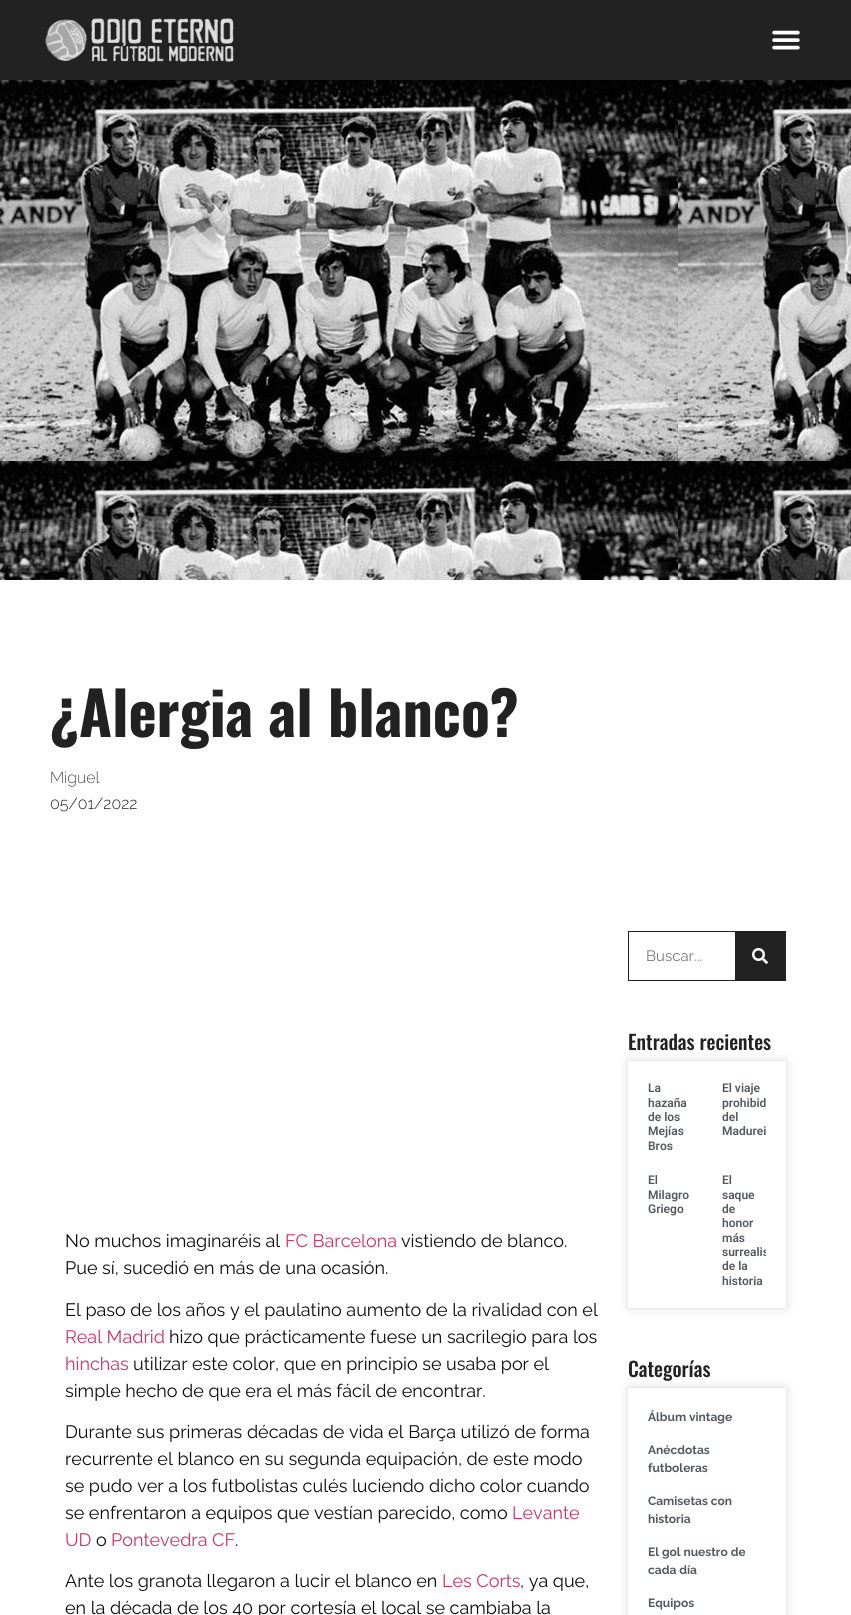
#include <cairo/cairo.h>
#include <math.h>
#include <stddef.h>


static void rounded_rect(cairo_t *cr, double x, double y, double w, double h, double r) {
  cairo_new_sub_path(cr);
  cairo_arc(cr, x + w - r, y + h - r, r, 0, M_PI / 2);
  cairo_arc(cr, x + r, y + h - r, r, M_PI / 2, M_PI);
  cairo_arc(cr, x + r, y + r, r, M_PI, 1.5 * M_PI);
  cairo_arc(cr, x + w - r, y + r, r, 1.5 * M_PI, 2 * M_PI);
  cairo_close_path(cr);
}

static void draw_shadow(cairo_t *cr, double x, double y, double w, double h, double r, double blur, double alpha) {
  cairo_push_group_with_content(cr, CAIRO_CONTENT_ALPHA);
  cairo_set_operator(cr, CAIRO_OPERATOR_SOURCE);
  for (int i = 15; i >= -15 && fmin(w, h) + blur * i / 3 > 0; i -= 2) {
    double e = blur * i / 6;
    cairo_set_source_rgba(cr, 0, 0, 0, alpha * erfc((i - 1) / 8.5) / 2);
    rounded_rect(cr, x - e, y - e, w + 2 * e, h + 2 * e, fmax(0, fmin(r + e + blur * .6, fmin(w, h) / 2 + e)));
    cairo_fill(cr);
  }
  cairo_pattern_t *soft = cairo_pop_group(cr);
  cairo_mask(cr, soft);
  cairo_pattern_destroy(soft);
}

static void draw_image(cairo_t *cr, const char *path, double x, double y, double w, double h) {
  cairo_surface_t *image = cairo_image_surface_create_from_png(path);
  cairo_save(cr);
  cairo_set_source_surface(cr, image, x, y);
  cairo_rectangle(cr, x, y, w, h);
  cairo_fill(cr);
  cairo_restore(cr);
  cairo_surface_destroy(image);
}

static void draw(cairo_t *cr) {
  cairo_set_source_rgb(cr, 1, 1, 1);
  cairo_paint(cr);
  cairo_set_source_rgb(cr, 34 / 255.0, 34 / 255.0, 34 / 255.0);
  cairo_rectangle(cr, 0, 0, 851, 80);
  cairo_fill(cr);
  draw_image(cr, "images/1.png", 45, 18, 189, 44);
  draw_image(cr, "images/2.png", 772, 30, 28, 20);
  draw_image(cr, "images/3.png", 0, 80, 851, 500);
  cairo_rectangle(cr, 628.5, 931.5, 157, 49);
  cairo_set_line_width(cr, 1);
  cairo_stroke(cr);
  cairo_rectangle(cr, 735, 932, 50, 48);
  cairo_fill(cr);
  draw_image(cr, "images/4.png", 752, 948, 16, 16);
  cairo_save(cr);
  cairo_set_fill_rule(cr, CAIRO_FILL_RULE_EVEN_ODD);
  cairo_new_path(cr);
  cairo_move_to(cr, 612, 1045);
  cairo_line_to(cr, 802, 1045);
  cairo_line_to(cr, 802, 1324);
  cairo_line_to(cr, 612, 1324);
  cairo_close_path(cr);
  cairo_move_to(cr, 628, 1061);
  cairo_line_to(cr, 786, 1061);
  cairo_line_to(cr, 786, 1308);
  cairo_line_to(cr, 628, 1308);
  cairo_close_path(cr);
  cairo_clip(cr);
  cairo_set_source_rgb(cr, 0, 0, 0);
  draw_shadow(cr, 628, 1061, 158, 247, 0, 5, 0.15);
  cairo_restore(cr);
  cairo_save(cr);
  cairo_set_fill_rule(cr, CAIRO_FILL_RULE_EVEN_ODD);
  cairo_new_path(cr);
  cairo_move_to(cr, 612, 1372);
  cairo_line_to(cr, 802, 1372);
  cairo_line_to(cr, 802, 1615);
  cairo_line_to(cr, 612, 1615);
  cairo_close_path(cr);
  cairo_move_to(cr, 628, 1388);
  cairo_line_to(cr, 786, 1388);
  cairo_line_to(cr, 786, 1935);
  cairo_line_to(cr, 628, 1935);
  cairo_close_path(cr);
  cairo_clip(cr);
  cairo_set_source_rgb(cr, 0, 0, 0);
  draw_shadow(cr, 628, 1388, 158, 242, 0, 5, 0.15);
  cairo_restore(cr);
  cairo_select_font_face(cr, "Oswald", CAIRO_FONT_SLANT_NORMAL, CAIRO_FONT_WEIGHT_BOLD);
  cairo_set_font_size(cr, 60);
  cairo_move_to(cr, 50, 737);
  cairo_show_text(cr, "¿Alergia al blanco?");
  cairo_select_font_face(cr, "Raleway ExtraLight", CAIRO_FONT_SLANT_NORMAL, CAIRO_FONT_WEIGHT_NORMAL);
  cairo_set_font_size(cr, 16);
  cairo_set_source_rgb(cr, 12 / 255.0, 12 / 255.0, 12 / 255.0);
  cairo_move_to(cr, 50, 783);
  cairo_show_text(cr, "Miguel");
  cairo_select_font_face(cr, "Raleway Light", CAIRO_FONT_SLANT_NORMAL, CAIRO_FONT_WEIGHT_NORMAL);
  cairo_set_source_rgb(cr, 34 / 255.0, 34 / 255.0, 34 / 255.0);
  cairo_move_to(cr, 50, 809);
  cairo_show_text(cr, "05/01/2022");
  cairo_select_font_face(cr, "Raleway", CAIRO_FONT_SLANT_NORMAL, CAIRO_FONT_WEIGHT_NORMAL);
  cairo_set_font_size(cr, 18);
  cairo_set_source_rgb(cr, 12 / 255.0, 12 / 255.0, 12 / 255.0);
  cairo_move_to(cr, 65, 1247);
  cairo_show_text(cr, "No muchos imaginaréis al");
  cairo_set_source_rgb(cr, 204 / 255.0, 51 / 255.0, 102 / 255.0);
  cairo_move_to(cr, 285, 1247);
  cairo_show_text(cr, "FC Barcelona");
  cairo_set_source_rgb(cr, 12 / 255.0, 12 / 255.0, 12 / 255.0);
  cairo_move_to(cr, 401, 1247);
  cairo_show_text(cr, "vistiendo de blanco.");
  cairo_move_to(cr, 65, 1274);
  cairo_show_text(cr, "Pue sí, sucedió en más de una ocasión.");
  cairo_move_to(cr, 65, 1316);
  cairo_show_text(cr, "El paso de los años y el paulatino aumento de la rivalidad con el");
  cairo_set_source_rgb(cr, 204 / 255.0, 51 / 255.0, 102 / 255.0);
  cairo_move_to(cr, 65, 1343);
  cairo_show_text(cr, "Real Madrid");
  cairo_set_source_rgb(cr, 12 / 255.0, 12 / 255.0, 12 / 255.0);
  cairo_move_to(cr, 169, 1343);
  cairo_show_text(cr, "hizo que prácticamente fuese un sacrilegio para los");
  cairo_set_source_rgb(cr, 204 / 255.0, 51 / 255.0, 102 / 255.0);
  cairo_move_to(cr, 65, 1370);
  cairo_show_text(cr, "hinchas");
  cairo_set_source_rgb(cr, 12 / 255.0, 12 / 255.0, 12 / 255.0);
  cairo_move_to(cr, 133, 1370);
  cairo_show_text(cr, "utilizar este color, que en principio se usaba por el");
  cairo_move_to(cr, 65, 1397);
  cairo_show_text(cr, "simple hecho de que era el más fácil de encontrar.");
  cairo_move_to(cr, 65, 1438);
  cairo_show_text(cr, "Durante sus primeras décadas de vida el Barça utilizó de forma");
  cairo_move_to(cr, 65, 1465);
  cairo_show_text(cr, "recurrente el blanco en su segunda equipación, de este modo");
  cairo_move_to(cr, 65, 1492);
  cairo_show_text(cr, "se pudo ver a los futbolistas culés luciendo dicho color cuando");
  cairo_move_to(cr, 65, 1519);
  cairo_show_text(cr, "se enfrentaron a equipos que vestían parecido, como");
  cairo_set_source_rgb(cr, 204 / 255.0, 51 / 255.0, 102 / 255.0);
  cairo_move_to(cr, 512, 1519);
  cairo_show_text(cr, "Levante");
  cairo_move_to(cr, 65, 1546);
  cairo_show_text(cr, "UD");
  cairo_set_source_rgb(cr, 12 / 255.0, 12 / 255.0, 12 / 255.0);
  cairo_move_to(cr, 96, 1546);
  cairo_show_text(cr, "o");
  cairo_set_source_rgb(cr, 204 / 255.0, 51 / 255.0, 102 / 255.0);
  cairo_move_to(cr, 111, 1546);
  cairo_show_text(cr, "Pontevedra CF");
  cairo_set_source_rgb(cr, 12 / 255.0, 12 / 255.0, 12 / 255.0);
  cairo_move_to(cr, 235, 1546);
  cairo_show_text(cr, ".");
  cairo_move_to(cr, 65, 1587);
  cairo_show_text(cr, "Ante los granota llegaron a lucir el blanco en");
  cairo_set_source_rgb(cr, 204 / 255.0, 51 / 255.0, 102 / 255.0);
  cairo_move_to(cr, 442, 1587);
  cairo_show_text(cr, "Les Corts");
  cairo_set_source_rgb(cr, 12 / 255.0, 12 / 255.0, 12 / 255.0);
  cairo_move_to(cr, 520, 1587);
  cairo_show_text(cr, ", ya que,");
  cairo_move_to(cr, 65, 1614);
  cairo_show_text(cr, "en la década de los 40 por cortesía el local se cambiaba la");
  cairo_set_font_size(cr, 15);
  cairo_set_source_rgb(cr, 122 / 255.0, 122 / 255.0, 122 / 255.0);
  cairo_move_to(cr, 646, 961);
  cairo_show_text(cr, "Buscar...");
  cairo_select_font_face(cr, "Oswald Medium", CAIRO_FONT_SLANT_NORMAL, CAIRO_FONT_WEIGHT_NORMAL);
  cairo_set_font_size(cr, 20);
  cairo_set_source_rgb(cr, 34 / 255.0, 34 / 255.0, 34 / 255.0);
  cairo_move_to(cr, 628, 1050);
  cairo_show_text(cr, "Entradas recientes");
  cairo_select_font_face(cr, "Roboto SemiBold", CAIRO_FONT_SLANT_NORMAL, CAIRO_FONT_WEIGHT_NORMAL);
  cairo_set_font_size(cr, 12);
  cairo_set_source_rgb(cr, 84 / 255.0, 89 / 255.0, 95 / 255.0);
  cairo_move_to(cr, 648, 1092);
  cairo_show_text(cr, "La");
  cairo_move_to(cr, 648, 1107);
  cairo_show_text(cr, "hazaña");
  cairo_move_to(cr, 648, 1121);
  cairo_show_text(cr, "de los");
  cairo_move_to(cr, 648, 1135);
  cairo_show_text(cr, "Mejías");
  cairo_move_to(cr, 648, 1150);
  cairo_show_text(cr, "Bros");
  cairo_move_to(cr, 722, 1092);
  cairo_show_text(cr, "El viaje");
  cairo_move_to(cr, 722, 1107);
  cairo_show_text(cr, "prohibid");
  cairo_move_to(cr, 722, 1121);
  cairo_show_text(cr, "del");
  cairo_move_to(cr, 722, 1135);
  cairo_show_text(cr, "Madurei");
  cairo_move_to(cr, 648, 1184);
  cairo_show_text(cr, "El");
  cairo_move_to(cr, 648, 1199);
  cairo_show_text(cr, "Milagro");
  cairo_move_to(cr, 648, 1213);
  cairo_show_text(cr, "Griego");
  cairo_move_to(cr, 722, 1184);
  cairo_show_text(cr, "El");
  cairo_move_to(cr, 722, 1199);
  cairo_show_text(cr, "saque");
  cairo_move_to(cr, 722, 1213);
  cairo_show_text(cr, "de");
  cairo_move_to(cr, 722, 1227);
  cairo_show_text(cr, "honor");
  cairo_move_to(cr, 722, 1242);
  cairo_show_text(cr, "más");
  cairo_save(cr);
  cairo_rectangle(cr, 722, 1173, 44, 115);
  cairo_clip(cr);
  cairo_move_to(cr, 722, 1256);
  cairo_show_text(cr, "surrealis");
  cairo_restore(cr);
  cairo_move_to(cr, 722, 1270);
  cairo_show_text(cr, "de la");
  cairo_move_to(cr, 722, 1285);
  cairo_show_text(cr, "historia");
  cairo_select_font_face(cr, "Oswald Medium", CAIRO_FONT_SLANT_NORMAL, CAIRO_FONT_WEIGHT_NORMAL);
  cairo_set_font_size(cr, 20);
  cairo_set_source_rgb(cr, 34 / 255.0, 34 / 255.0, 34 / 255.0);
  cairo_move_to(cr, 628, 1377);
  cairo_show_text(cr, "Categorías");
  cairo_select_font_face(cr, "Raleway", CAIRO_FONT_SLANT_NORMAL, CAIRO_FONT_WEIGHT_BOLD);
  cairo_set_font_size(cr, 12);
  cairo_set_source_rgb(cr, 84 / 255.0, 89 / 255.0, 95 / 255.0);
  cairo_move_to(cr, 648, 1421);
  cairo_show_text(cr, "Álbum vintage");
  cairo_move_to(cr, 648, 1454);
  cairo_show_text(cr, "Anécdotas");
  cairo_move_to(cr, 648, 1472);
  cairo_show_text(cr, "futboleras");
  cairo_move_to(cr, 648, 1505);
  cairo_show_text(cr, "Camisetas con");
  cairo_move_to(cr, 648, 1523);
  cairo_show_text(cr, "historia");
  cairo_move_to(cr, 648, 1556);
  cairo_show_text(cr, "El gol nuestro de");
  cairo_move_to(cr, 648, 1574);
  cairo_show_text(cr, "cada día");
  cairo_move_to(cr, 648, 1607);
  cairo_show_text(cr, "Equipos");
}

int main(void) {
  cairo_surface_t *surface = cairo_image_surface_create(CAIRO_FORMAT_RGB24, 851, 1615);
  cairo_t *cr = cairo_create(surface);
  cairo_font_options_t *options = cairo_font_options_create();
  cairo_font_options_set_hint_metrics(options, CAIRO_HINT_METRICS_OFF);
  cairo_font_options_set_hint_style(options, CAIRO_HINT_STYLE_NONE);
  cairo_set_font_options(cr, options);
  cairo_set_miter_limit(cr, 4);
  draw(cr);
  cairo_surface_write_to_png(surface, "out.png");
  cairo_font_options_destroy(options);
  cairo_destroy(cr);
  cairo_surface_destroy(surface);
  return 0;
}
